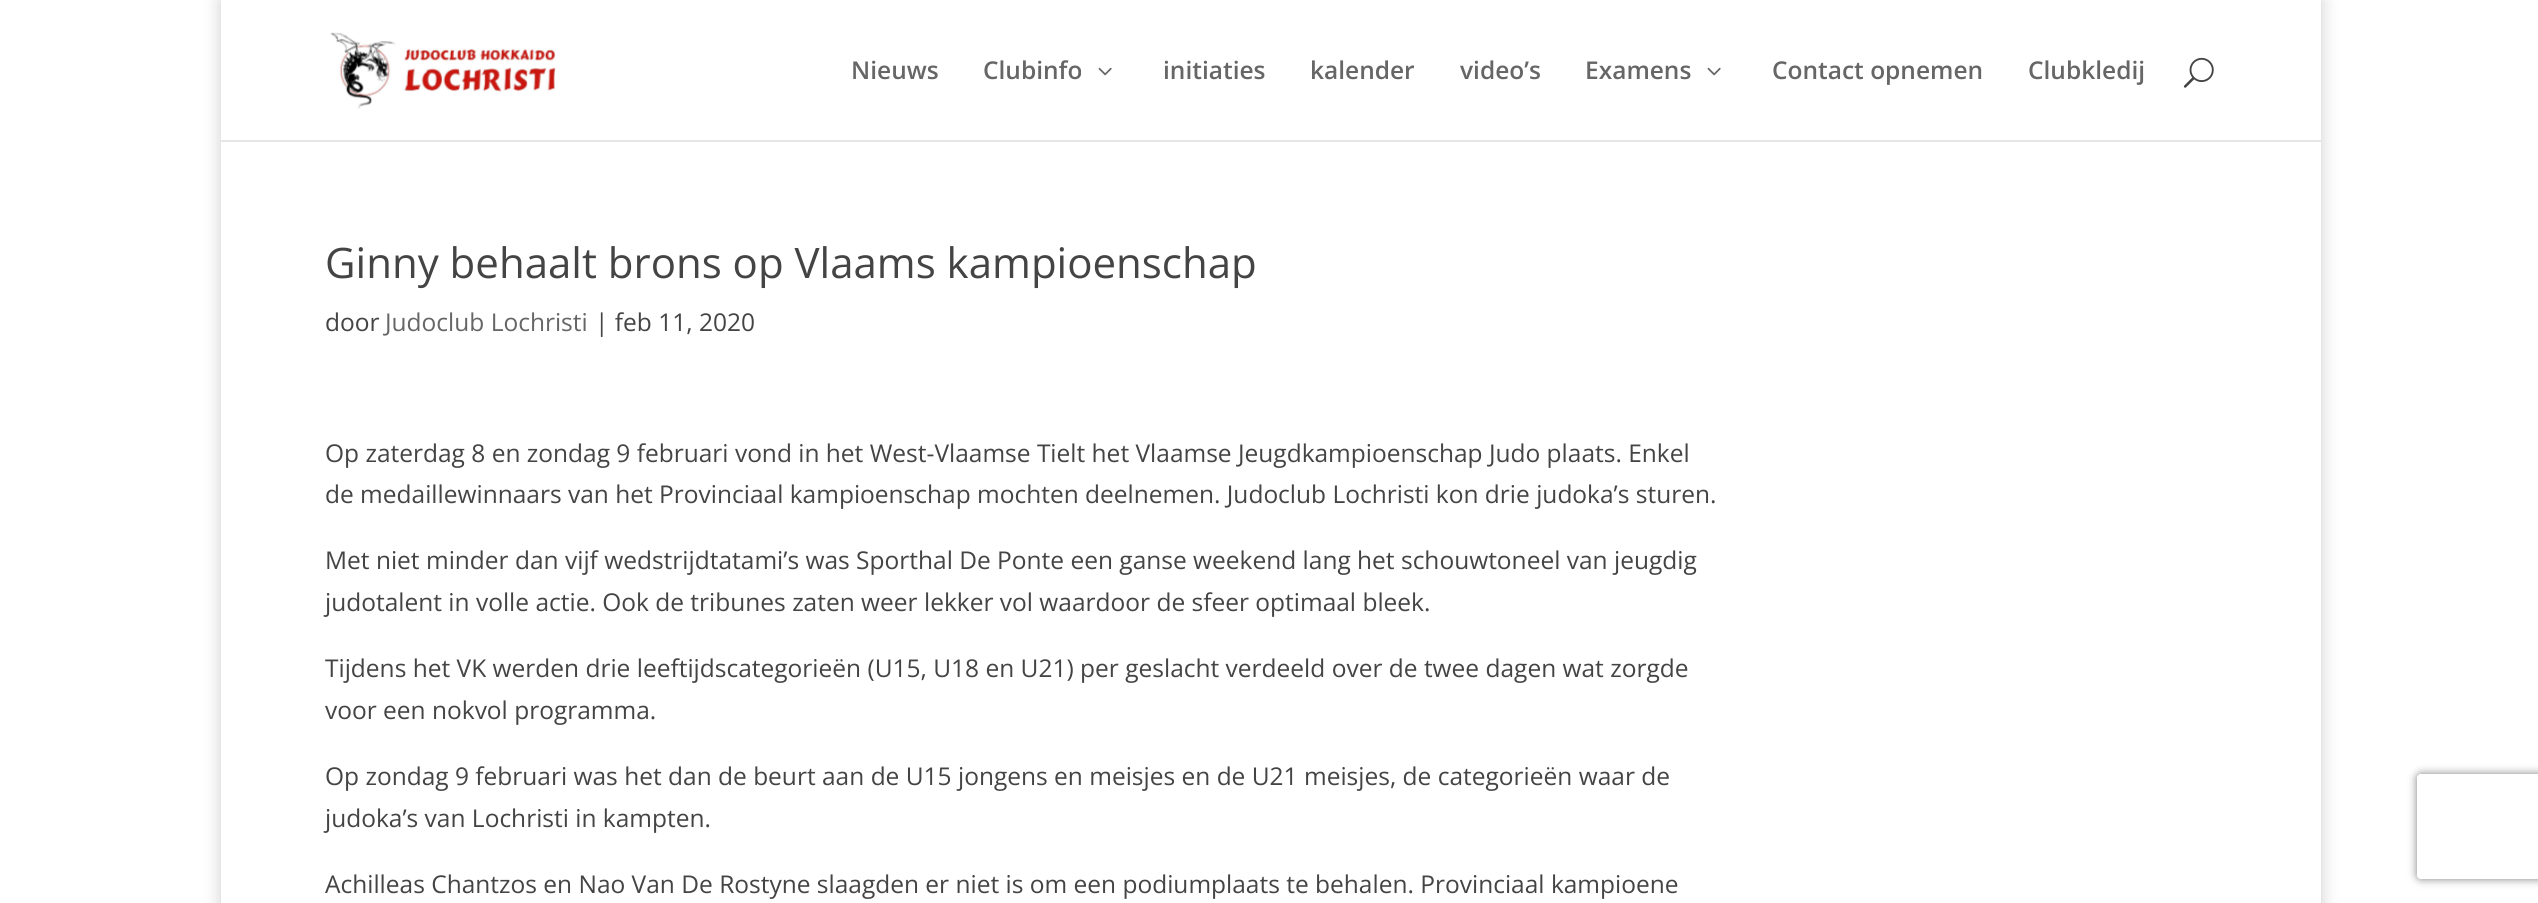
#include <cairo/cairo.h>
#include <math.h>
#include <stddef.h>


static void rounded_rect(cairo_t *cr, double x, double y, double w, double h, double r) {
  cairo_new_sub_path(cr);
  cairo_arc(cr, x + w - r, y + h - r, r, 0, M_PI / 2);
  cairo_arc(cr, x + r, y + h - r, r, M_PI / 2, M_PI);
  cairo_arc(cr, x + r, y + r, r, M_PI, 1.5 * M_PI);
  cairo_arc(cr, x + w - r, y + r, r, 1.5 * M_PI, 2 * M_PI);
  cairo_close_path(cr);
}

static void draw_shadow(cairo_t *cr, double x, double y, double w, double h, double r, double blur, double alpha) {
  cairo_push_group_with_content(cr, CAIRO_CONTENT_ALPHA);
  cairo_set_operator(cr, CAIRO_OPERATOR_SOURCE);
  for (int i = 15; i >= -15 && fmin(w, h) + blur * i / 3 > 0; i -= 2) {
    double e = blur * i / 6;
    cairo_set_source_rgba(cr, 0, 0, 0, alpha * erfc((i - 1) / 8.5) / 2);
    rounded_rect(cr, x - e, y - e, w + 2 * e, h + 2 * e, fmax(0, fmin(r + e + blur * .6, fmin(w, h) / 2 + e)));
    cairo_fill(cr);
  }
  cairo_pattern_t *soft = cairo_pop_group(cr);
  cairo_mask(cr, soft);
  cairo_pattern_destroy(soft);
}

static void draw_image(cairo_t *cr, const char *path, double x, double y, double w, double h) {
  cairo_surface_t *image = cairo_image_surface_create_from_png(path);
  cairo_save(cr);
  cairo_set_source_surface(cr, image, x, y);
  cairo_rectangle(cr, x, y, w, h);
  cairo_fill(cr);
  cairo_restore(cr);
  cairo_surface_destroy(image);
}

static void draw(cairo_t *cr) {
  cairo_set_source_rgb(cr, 1, 1, 1);
  cairo_paint(cr);
  cairo_set_source_rgb(cr, 0, 0, 0);
  draw_shadow(cr, 221, 0, 2100, 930, 0, 9, 0.2);
  cairo_set_source_rgb(cr, 1, 1, 1);
  cairo_rectangle(cr, 221, 140, 2100, 763);
  cairo_fill(cr);
  cairo_set_source_rgba(cr, 0, 0, 0, 0.1);
  cairo_new_path(cr);
  cairo_move_to(cr, 221, 140);
  cairo_line_to(cr, 221, 142);
  cairo_line_to(cr, 2321, 142);
  cairo_line_to(cr, 2321, 2);
  cairo_line_to(cr, 2320, 2);
  cairo_line_to(cr, 2320, 140);
  cairo_close_path(cr);
  cairo_fill(cr);
  cairo_set_source_rgb(cr, 1, 1, 1);
  cairo_rectangle(cr, 221, 0, 2100, 140);
  cairo_fill(cr);
  draw_image(cr, "images/1.png", 330, 32, 226, 77);
  draw_image(cr, "images/2.png", 1098, 67, 14, 9);
  draw_image(cr, "images/2.png", 1707, 67, 14, 9);
  draw_image(cr, "images/3.png", 2183, 57, 31, 31);
  cairo_save(cr);
  cairo_set_fill_rule(cr, CAIRO_FILL_RULE_EVEN_ODD);
  cairo_new_path(cr);
  cairo_move_to(cr, 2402, 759);
  cairo_line_to(cr, 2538, 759);
  cairo_line_to(cr, 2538, 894);
  cairo_line_to(cr, 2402, 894);
  cairo_close_path(cr);
  cairo_move_to(cr, 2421, 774);
  cairo_line_to(cr, 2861, 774);
  cairo_curve_to(cr, 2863, 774, 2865, 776, 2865, 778);
  cairo_line_to(cr, 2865, 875);
  cairo_curve_to(cr, 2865, 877, 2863, 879, 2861, 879);
  cairo_line_to(cr, 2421, 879);
  cairo_curve_to(cr, 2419, 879, 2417, 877, 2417, 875);
  cairo_line_to(cr, 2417, 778);
  cairo_curve_to(cr, 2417, 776, 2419, 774, 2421, 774);
  cairo_close_path(cr);
  cairo_clip(cr);
  cairo_set_source_rgb(cr, 128 / 255.0, 128 / 255.0, 128 / 255.0);
  draw_shadow(cr, 2417, 774, 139, 105, 4, 4.5, 1);
  cairo_restore(cr);
  cairo_select_font_face(cr, "Open Sans SemiBold", CAIRO_FONT_SLANT_NORMAL, CAIRO_FONT_WEIGHT_NORMAL);
  cairo_set_font_size(cr, 24.5);
  cairo_set_source_rgb(cr, 102 / 255.0, 102 / 255.0, 102 / 255.0);
  cairo_move_to(cr, 851, 79);
  cairo_show_text(cr, "Nieuws");
  cairo_move_to(cr, 983, 79);
  cairo_show_text(cr, "Clubinfo");
  cairo_move_to(cr, 1163, 79);
  cairo_show_text(cr, "initiaties");
  cairo_move_to(cr, 1310, 79);
  cairo_show_text(cr, "kalender");
  cairo_move_to(cr, 1460, 79);
  cairo_show_text(cr, "video’s");
  cairo_move_to(cr, 1585, 79);
  cairo_show_text(cr, "Examens");
  cairo_move_to(cr, 1772, 79);
  cairo_show_text(cr, "Contact opnemen");
  cairo_move_to(cr, 2028, 79);
  cairo_show_text(cr, "Clubkledij");
  cairo_select_font_face(cr, "Open Sans", CAIRO_FONT_SLANT_NORMAL, CAIRO_FONT_WEIGHT_NORMAL);
  cairo_set_font_size(cr, 42);
  cairo_set_source_rgb(cr, 68 / 255.0, 68 / 255.0, 68 / 255.0);
  cairo_move_to(cr, 325, 278);
  cairo_show_text(cr, "Ginny behaalt brons op Vlaams kampioenschap");
  cairo_set_font_size(cr, 24.5);
  cairo_move_to(cr, 325, 331);
  cairo_show_text(cr, "door");
  cairo_set_source_rgb(cr, 102 / 255.0, 102 / 255.0, 102 / 255.0);
  cairo_move_to(cr, 385, 331);
  cairo_show_text(cr, "Judoclub Lochristi");
  cairo_set_source_rgb(cr, 68 / 255.0, 68 / 255.0, 68 / 255.0);
  cairo_move_to(cr, 595, 331);
  cairo_show_text(cr, "| feb 11, 2020");
  cairo_move_to(cr, 325, 462);
  cairo_show_text(cr, "Op zaterdag 8 en zondag 9 februari vond in het West-Vlaamse Tielt het Vlaamse Jeugdkampioenschap Judo plaats. Enkel");
  cairo_move_to(cr, 325, 503);
  cairo_show_text(cr, "de medaillewinnaars van het Provinciaal kampioenschap mochten deelnemen. Judoclub Lochristi kon drie judoka’s sturen.");
  cairo_move_to(cr, 325, 569);
  cairo_show_text(cr, "Met niet minder dan vijf wedstrijdtatami’s was Sporthal De Ponte een ganse weekend lang het schouwtoneel van jeugdig");
  cairo_move_to(cr, 325, 611);
  cairo_show_text(cr, "judotalent in volle actie. Ook de tribunes zaten weer lekker vol waardoor de sfeer optimaal bleek.");
  cairo_move_to(cr, 325, 677);
  cairo_show_text(cr, "Tijdens het VK werden drie leeftijdscategorieën (U15, U18 en U21) per geslacht verdeeld over de twee dagen wat zorgde");
  cairo_move_to(cr, 325, 719);
  cairo_show_text(cr, "voor een nokvol programma.");
  cairo_move_to(cr, 325, 785);
  cairo_show_text(cr, "Op zondag 9 februari was het dan de beurt aan de U15 jongens en meisjes en de U21 meisjes, de categorieën waar de");
  cairo_move_to(cr, 325, 827);
  cairo_show_text(cr, "judoka’s van Lochristi in kampten.");
  cairo_move_to(cr, 325, 893);
  cairo_show_text(cr, "Achilleas Chantzos en Nao Van De Rostyne slaagden er niet is om een podiumplaats te behalen. Provinciaal kampioene");
}

int main(void) {
  cairo_surface_t *surface = cairo_image_surface_create(CAIRO_FORMAT_RGB24, 2538, 903);
  cairo_t *cr = cairo_create(surface);
  cairo_font_options_t *options = cairo_font_options_create();
  cairo_font_options_set_hint_metrics(options, CAIRO_HINT_METRICS_OFF);
  cairo_font_options_set_hint_style(options, CAIRO_HINT_STYLE_NONE);
  cairo_set_font_options(cr, options);
  cairo_set_miter_limit(cr, 4);
  draw(cr);
  cairo_surface_write_to_png(surface, "out.png");
  cairo_font_options_destroy(options);
  cairo_destroy(cr);
  cairo_surface_destroy(surface);
  return 0;
}
